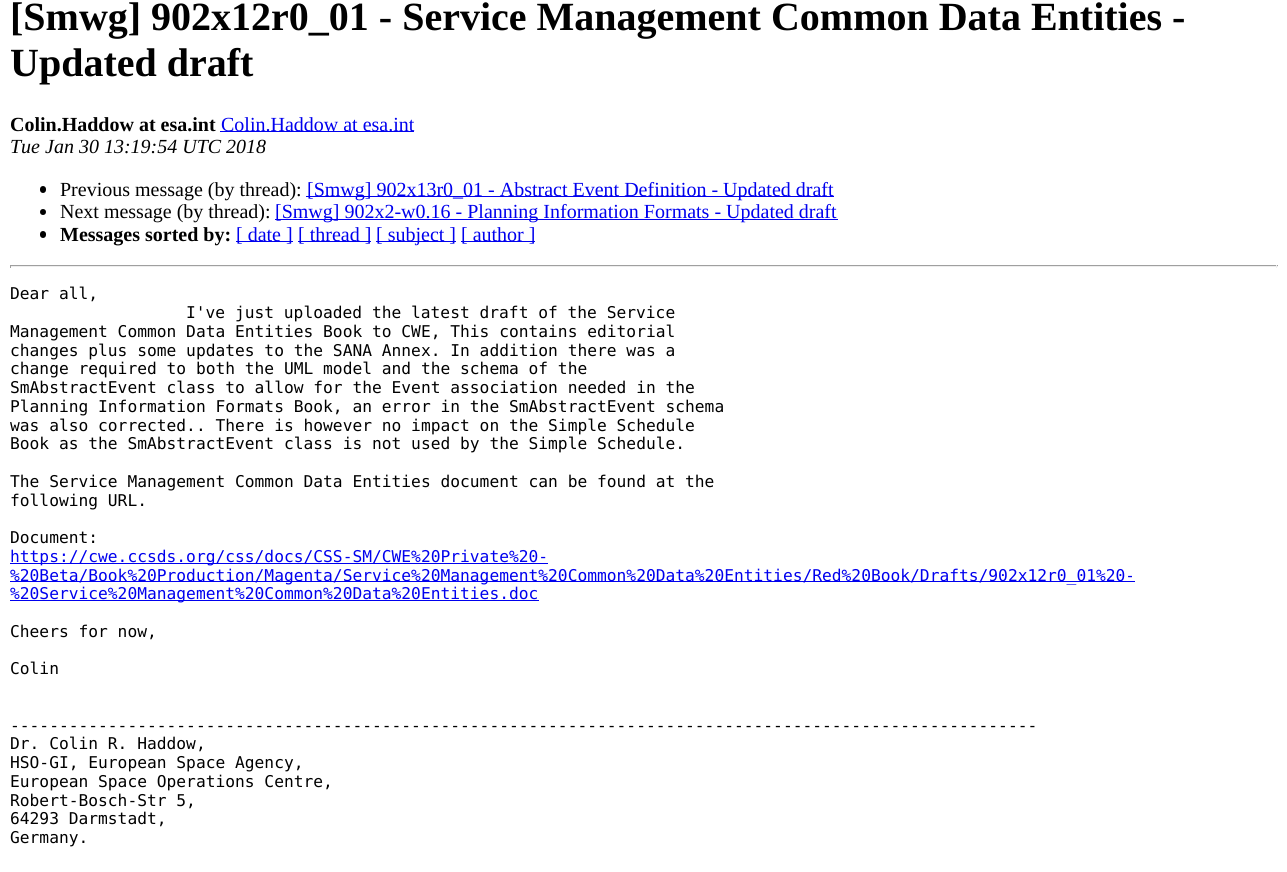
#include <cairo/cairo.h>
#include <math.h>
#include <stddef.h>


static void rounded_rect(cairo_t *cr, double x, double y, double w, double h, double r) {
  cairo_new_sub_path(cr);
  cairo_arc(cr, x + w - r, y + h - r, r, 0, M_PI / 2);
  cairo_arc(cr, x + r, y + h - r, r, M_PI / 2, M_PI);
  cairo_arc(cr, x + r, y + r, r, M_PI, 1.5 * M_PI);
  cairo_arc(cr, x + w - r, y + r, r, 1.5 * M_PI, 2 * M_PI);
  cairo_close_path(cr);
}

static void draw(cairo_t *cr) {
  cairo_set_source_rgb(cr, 1, 1, 1);
  cairo_paint(cr);
  cairo_set_source_rgb(cr, 0, 0, 238 / 255.0);
  cairo_rectangle(cr, 220, 131, 194, 1);
  cairo_fill(cr);
  cairo_set_source_rgb(cr, 0, 0, 0);
  rounded_rect(cr, 40, 186, 6, 7, 3);
  cairo_fill(cr);
  cairo_set_source_rgb(cr, 0, 0, 238 / 255.0);
  cairo_rectangle(cr, 306, 196, 528, 1);
  cairo_fill(cr);
  cairo_set_source_rgb(cr, 0, 0, 0);
  cairo_arc(cr, 43, 212, 3, 0, 2 * M_PI);
  cairo_fill(cr);
  cairo_set_source_rgb(cr, 0, 0, 238 / 255.0);
  cairo_rectangle(cr, 275, 219, 563, 1);
  cairo_fill(cr);
  cairo_set_source_rgb(cr, 0, 0, 0);
  rounded_rect(cr, 40, 231, 6, 7, 3);
  cairo_fill(cr);
  cairo_set_source_rgb(cr, 0, 0, 238 / 255.0);
  cairo_rectangle(cr, 236, 241, 57, 1);
  cairo_fill(cr);
  cairo_rectangle(cr, 298, 241, 73, 1);
  cairo_fill(cr);
  cairo_rectangle(cr, 376, 241, 80, 1);
  cairo_fill(cr);
  cairo_rectangle(cr, 461, 241, 74, 1);
  cairo_fill(cr);
  cairo_set_source_rgb(cr, 159 / 255.0, 159 / 255.0, 159 / 255.0);
  cairo_rectangle(cr, 10, 265, 1268, 1);
  cairo_fill(cr);
  cairo_set_source_rgb(cr, 238 / 255.0, 238 / 255.0, 238 / 255.0);
  cairo_rectangle(cr, 1276, 265, 1, 3);
  cairo_fill(cr);
  cairo_rectangle(cr, 10, 266, 1268, 1);
  cairo_fill(cr);
  cairo_set_source_rgb(cr, 159 / 255.0, 159 / 255.0, 159 / 255.0);
  cairo_rectangle(cr, 10, 265, 1, 3);
  cairo_fill(cr);
  cairo_set_source_rgb(cr, 0, 0, 238 / 255.0);
  cairo_rectangle(cr, 10, 563, 538, 1);
  cairo_fill(cr);
  cairo_rectangle(cr, 10, 581, 1125, 1);
  cairo_fill(cr);
  cairo_rectangle(cr, 10, 600, 529, 1);
  cairo_fill(cr);
  cairo_select_font_face(cr, "Liberation Serif", CAIRO_FONT_SLANT_NORMAL, CAIRO_FONT_WEIGHT_BOLD);
  cairo_set_font_size(cr, 40);
  cairo_set_source_rgb(cr, 0, 0, 0);
  cairo_move_to(cr, 10, 30);
  cairo_show_text(cr, "[Smwg] 902x12r0_01 - Service Management Common Data Entities -");
  cairo_move_to(cr, 10, 76);
  cairo_show_text(cr, "Updated draft");
  cairo_set_font_size(cr, 20);
  cairo_move_to(cr, 10, 131);
  cairo_show_text(cr, "Colin.Haddow at esa.int");
  cairo_select_font_face(cr, "Liberation Serif", CAIRO_FONT_SLANT_NORMAL, CAIRO_FONT_WEIGHT_NORMAL);
  cairo_set_source_rgb(cr, 0, 0, 238 / 255.0);
  cairo_move_to(cr, 221, 131);
  cairo_show_text(cr, "Colin.Haddow at esa.int");
  cairo_select_font_face(cr, "Liberation Serif", CAIRO_FONT_SLANT_ITALIC, CAIRO_FONT_WEIGHT_NORMAL);
  cairo_set_source_rgb(cr, 0, 0, 0);
  cairo_move_to(cr, 10, 153);
  cairo_show_text(cr, "Tue Jan 30 13:19:54 UTC 2018");
  cairo_select_font_face(cr, "Liberation Serif", CAIRO_FONT_SLANT_NORMAL, CAIRO_FONT_WEIGHT_NORMAL);
  cairo_move_to(cr, 60, 196);
  cairo_show_text(cr, "Previous message (by thread):");
  cairo_set_source_rgb(cr, 0, 0, 238 / 255.0);
  cairo_move_to(cr, 307, 196);
  cairo_show_text(cr, "[Smwg] 902x13r0_01 - Abstract Event Definition - Updated draft");
  cairo_set_source_rgb(cr, 0, 0, 0);
  cairo_move_to(cr, 60, 218);
  cairo_show_text(cr, "Next message (by thread):");
  cairo_set_source_rgb(cr, 0, 0, 238 / 255.0);
  cairo_move_to(cr, 275, 218);
  cairo_show_text(cr, "[Smwg] 902x2-w0.16 - Planning Information Formats - Updated draft");
  cairo_select_font_face(cr, "Liberation Serif", CAIRO_FONT_SLANT_NORMAL, CAIRO_FONT_WEIGHT_BOLD);
  cairo_set_source_rgb(cr, 0, 0, 0);
  cairo_move_to(cr, 60, 241);
  cairo_show_text(cr, "Messages sorted by:");
  cairo_select_font_face(cr, "Liberation Serif", CAIRO_FONT_SLANT_NORMAL, CAIRO_FONT_WEIGHT_NORMAL);
  cairo_set_source_rgb(cr, 0, 0, 238 / 255.0);
  cairo_move_to(cr, 236, 241);
  cairo_show_text(cr, "[ date ]");
  cairo_move_to(cr, 298, 241);
  cairo_show_text(cr, "[ thread ]");
  cairo_move_to(cr, 376, 241);
  cairo_show_text(cr, "[ subject ]");
  cairo_move_to(cr, 461, 241);
  cairo_show_text(cr, "[ author ]");
  cairo_select_font_face(cr, "DejaVu Sans Mono", CAIRO_FONT_SLANT_NORMAL, CAIRO_FONT_WEIGHT_NORMAL);
  cairo_set_font_size(cr, 16.25);
  cairo_set_source_rgb(cr, 0, 0, 0);
  cairo_move_to(cr, 10, 299);
  cairo_show_text(cr, "Dear all,");
  cairo_move_to(cr, 186, 318);
  cairo_show_text(cr, "I've just uploaded the latest draft of the Service");
  cairo_move_to(cr, 10, 337);
  cairo_show_text(cr, "Management Common Data Entities Book to CWE, This contains editorial");
  cairo_move_to(cr, 10, 356);
  cairo_show_text(cr, "changes plus some updates to the SANA Annex. In addition there was a");
  cairo_move_to(cr, 10, 374);
  cairo_show_text(cr, "change required to both the UML model and the schema of the");
  cairo_move_to(cr, 10, 393);
  cairo_show_text(cr, "SmAbstractEvent class to allow for the Event association needed in the");
  cairo_move_to(cr, 10, 412);
  cairo_show_text(cr, "Planning Information Formats Book, an error in the SmAbstractEvent schema");
  cairo_move_to(cr, 10, 431);
  cairo_show_text(cr, "was also corrected.. There is however no impact on the Simple Schedule");
  cairo_move_to(cr, 10, 449);
  cairo_show_text(cr, "Book as the SmAbstractEvent class is not used by the Simple Schedule.");
  cairo_move_to(cr, 10, 487);
  cairo_show_text(cr, "The Service Management Common Data Entities document can be found at the");
  cairo_move_to(cr, 10, 506);
  cairo_show_text(cr, "following URL.");
  cairo_move_to(cr, 10, 543);
  cairo_show_text(cr, "Document:");
  cairo_set_source_rgb(cr, 0, 0, 238 / 255.0);
  cairo_move_to(cr, 10, 562);
  cairo_show_text(cr, "https://cwe.ccsds.org/css/docs/CSS-SM/CWE%20Private%20-");
  cairo_move_to(cr, 10, 581);
  cairo_show_text(cr, "%20Beta/Book%20Production/Magenta/Service%20Management%20Common%20Data%20Entities/Red%20Book/Drafts/902x12r0_01%20-");
  cairo_move_to(cr, 10, 599);
  cairo_show_text(cr, "%20Service%20Management%20Common%20Data%20Entities.doc");
  cairo_set_source_rgb(cr, 0, 0, 0);
  cairo_move_to(cr, 10, 637);
  cairo_show_text(cr, "Cheers for now,");
  cairo_move_to(cr, 10, 674);
  cairo_show_text(cr, "Colin");
  cairo_move_to(cr, 10, 731);
  cairo_show_text(cr, "---------------------------------------------------------------------------------------------------------");
  cairo_move_to(cr, 10, 749);
  cairo_show_text(cr, "Dr. Colin R. Haddow,");
  cairo_move_to(cr, 10, 768);
  cairo_show_text(cr, "HSO-GI, European Space Agency,");
  cairo_move_to(cr, 10, 787);
  cairo_show_text(cr, "European Space Operations Centre,");
  cairo_move_to(cr, 10, 806);
  cairo_show_text(cr, "Robert-Bosch-Str 5,");
  cairo_move_to(cr, 10, 824);
  cairo_show_text(cr, "64293 Darmstadt,");
  cairo_move_to(cr, 10, 843);
  cairo_show_text(cr, "Germany.");
}

int main(void) {
  cairo_surface_t *surface = cairo_image_surface_create(CAIRO_FORMAT_RGB24, 1287, 872);
  cairo_t *cr = cairo_create(surface);
  cairo_font_options_t *options = cairo_font_options_create();
  cairo_font_options_set_hint_metrics(options, CAIRO_HINT_METRICS_OFF);
  cairo_font_options_set_hint_style(options, CAIRO_HINT_STYLE_NONE);
  cairo_set_font_options(cr, options);
  cairo_set_miter_limit(cr, 4);
  draw(cr);
  cairo_surface_write_to_png(surface, "out.png");
  cairo_font_options_destroy(options);
  cairo_destroy(cr);
  cairo_surface_destroy(surface);
  return 0;
}
